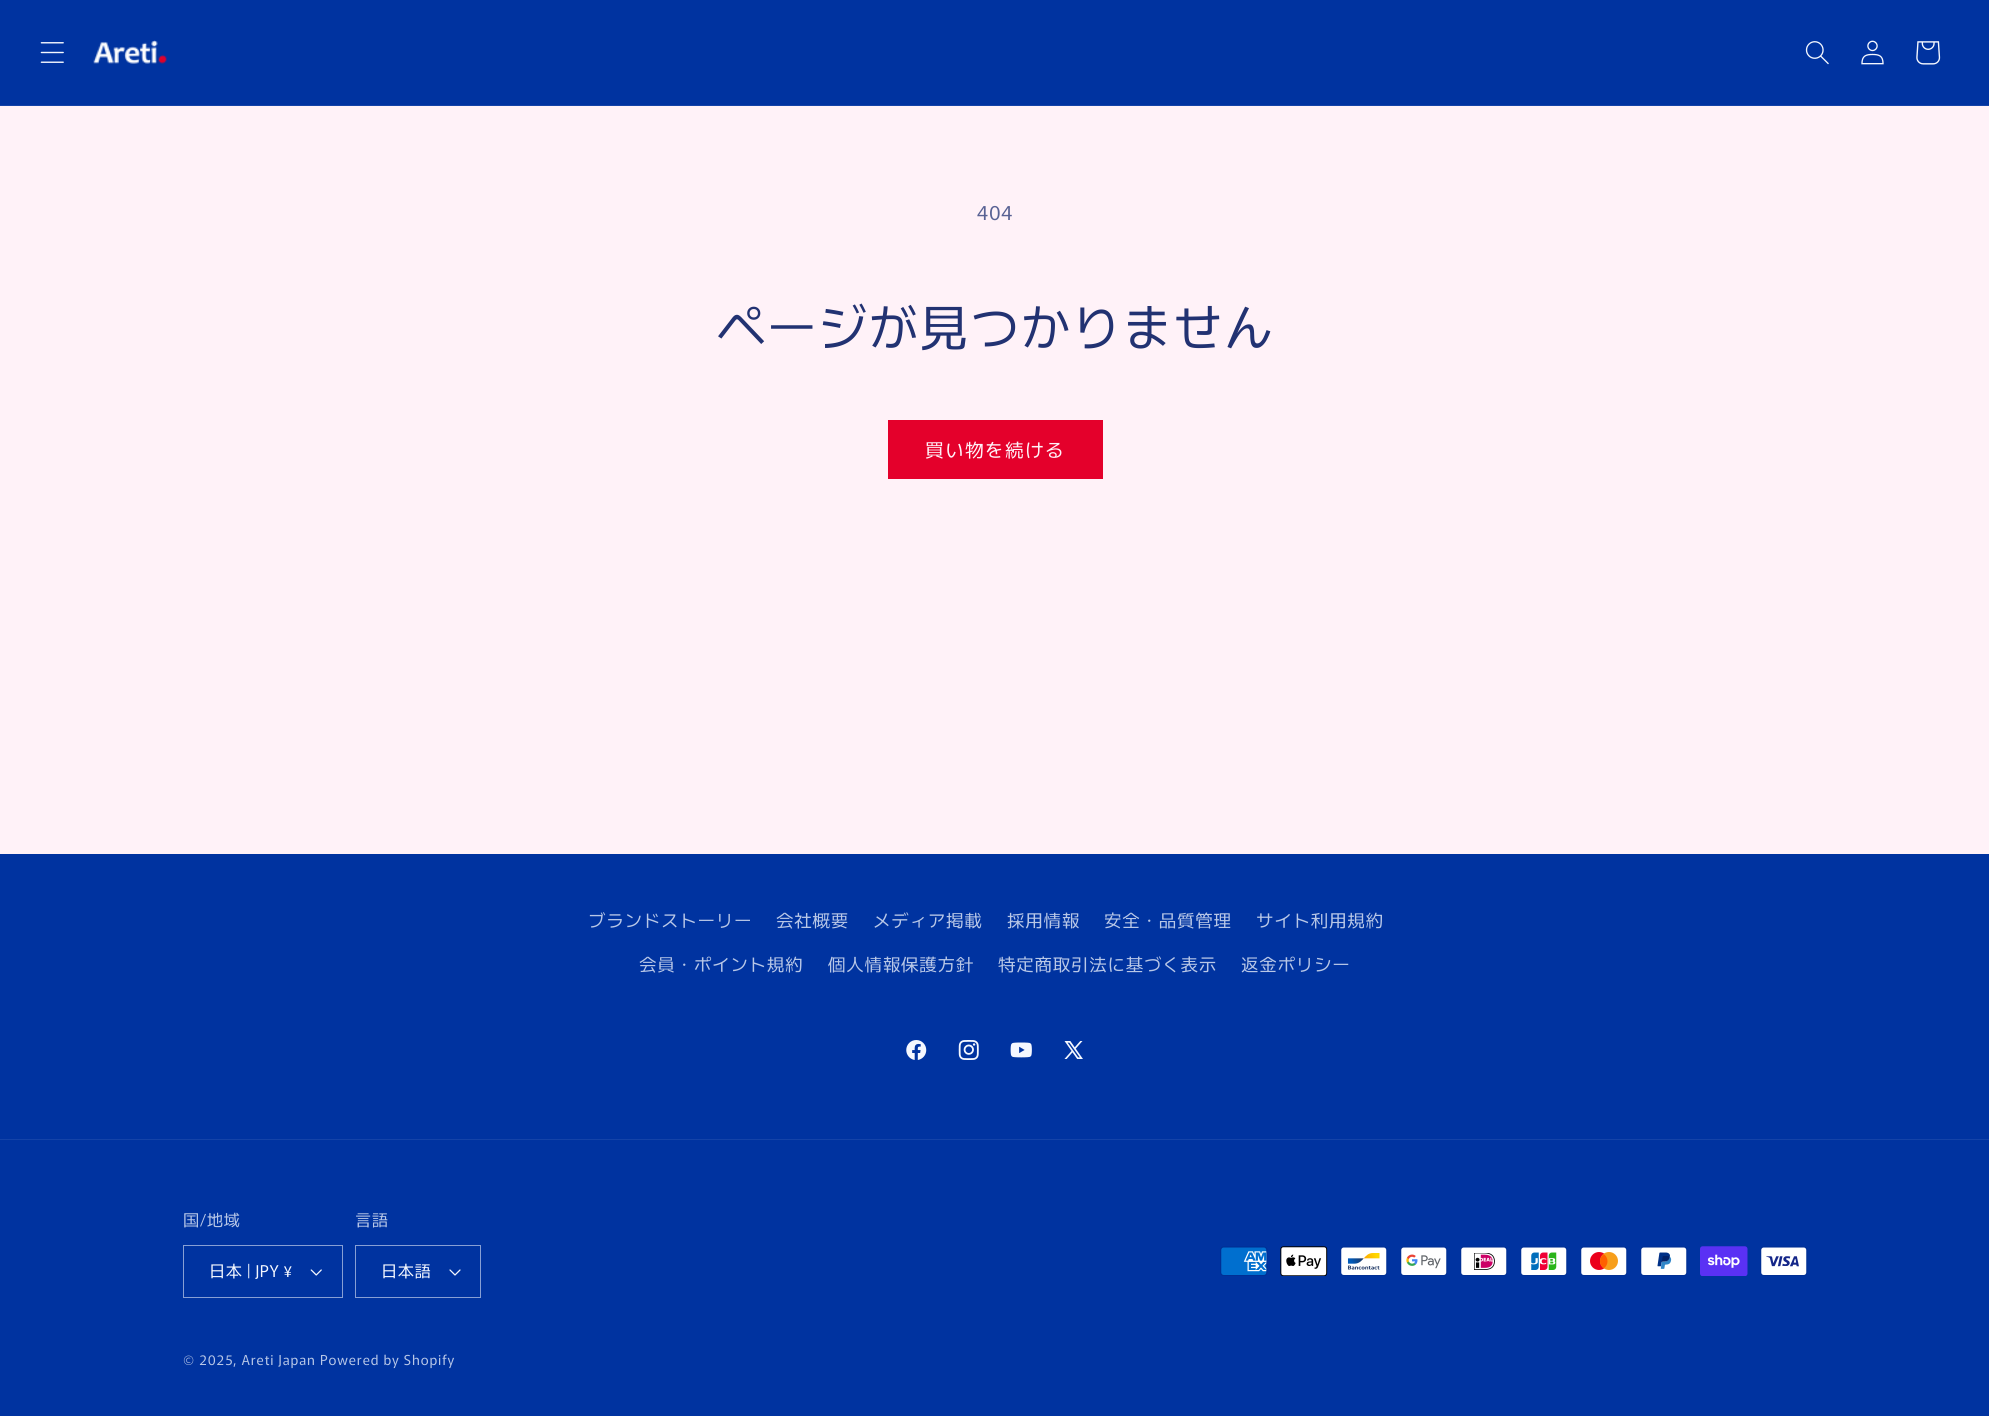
#include <cairo/cairo.h>
#include <math.h>
#include <stddef.h>


static void draw_spaced(cairo_t *cr, double x, double y, const char *s, double letter, double word) {
  cairo_move_to(cr, x, y);
  while (*s) {
    char ch[5] = {0};
    int n = 0;
    do ch[n++] = *s++; while ((*s & 0xC0) == 0x80);
    cairo_show_text(cr, ch);
    cairo_rel_move_to(cr, letter + word * (*ch == ' '), 0);
  }
}

static void draw_image(cairo_t *cr, const char *path, double x, double y, double w, double h) {
  cairo_surface_t *image = cairo_image_surface_create_from_png(path);
  cairo_save(cr);
  cairo_set_source_surface(cr, image, x, y);
  cairo_rectangle(cr, x, y, w, h);
  cairo_fill(cr);
  cairo_restore(cr);
  cairo_surface_destroy(image);
}

static void draw(cairo_t *cr) {
  cairo_set_source_rgb(cr, 1, 242 / 255.0, 248 / 255.0);
  cairo_paint(cr);
  cairo_set_source_rgb(cr, 0, 51 / 255.0, 160 / 255.0);
  cairo_rectangle(cr, 0, 0, 1989, 105);
  cairo_fill(cr);
  cairo_set_source_rgb(cr, 20 / 255.0, 67 / 255.0, 168 / 255.0);
  cairo_rectangle(cr, 0, 105, 1989, 1);
  cairo_fill(cr);
  draw_image(cr, "images/1.png", 40, 42, 24, 21);
  draw_image(cr, "images/2.png", 93, 40, 74, 24);
  draw_image(cr, "images/3.png", 1805, 41, 24, 24);
  draw_image(cr, "images/4.png", 1861, 40, 23, 25);
  draw_image(cr, "images/5.png", 1916, 41, 25, 24);
  cairo_set_source_rgb(cr, 228 / 255.0, 0, 43 / 255.0);
  cairo_rectangle(cr, 888, 420, 215, 59);
  cairo_fill(cr);
  cairo_set_source_rgb(cr, 0, 51 / 255.0, 160 / 255.0);
  cairo_rectangle(cr, 0, 854, 1989, 562);
  cairo_fill(cr);
  draw_image(cr, "images/6.png", 906, 1040, 21, 20);
  draw_image(cr, "images/7.png", 958, 1040, 21, 20);
  draw_image(cr, "images/8.png", 1010, 1042, 22, 16);
  draw_image(cr, "images/9.png", 1064, 1041, 19, 18);
  cairo_set_source_rgb(cr, 20 / 255.0, 67 / 255.0, 168 / 255.0);
  cairo_rectangle(cr, 0, 1139, 1989, 1);
  cairo_fill(cr);
  draw_image(cr, "images/10.png", 310, 1269, 12, 7);
  cairo_rectangle(cr, 183.5, 1245.5, 159, 52);
  cairo_set_source_rgb(cr, 135 / 255.0, 159 / 255.0, 212 / 255.0);
  cairo_set_line_width(cr, 1);
  cairo_stroke(cr);
  draw_image(cr, "images/11.png", 449, 1269, 12, 7);
  cairo_rectangle(cr, 355.5, 1245.5, 125, 52);
  cairo_stroke(cr);
  draw_image(cr, "images/12.png", 1220, 1246, 48, 30);
  draw_image(cr, "images/13.png", 1280, 1246, 48, 30);
  draw_image(cr, "images/14.png", 1340, 1246, 48, 30);
  draw_image(cr, "images/15.png", 1400, 1246, 48, 30);
  draw_image(cr, "images/16.png", 1460, 1246, 48, 30);
  draw_image(cr, "images/17.png", 1520, 1246, 48, 30);
  draw_image(cr, "images/18.png", 1580, 1246, 48, 30);
  draw_image(cr, "images/19.png", 1640, 1246, 48, 30);
  draw_image(cr, "images/20.png", 1700, 1246, 48, 30);
  draw_image(cr, "images/21.png", 1760, 1246, 48, 30);
  cairo_select_font_face(cr, "Murecho", CAIRO_FONT_SLANT_NORMAL, CAIRO_FONT_WEIGHT_NORMAL);
  cairo_set_font_size(cr, 20);
  cairo_set_source_rgb(cr, 89 / 255.0, 98 / 255.0, 148 / 255.0);
  draw_spaced(cr, 977, 220, "404", 0.75, 0);
  cairo_set_font_size(cr, 50);
  cairo_set_source_rgb(cr, 34 / 255.0, 50 / 255.0, 114 / 255.0);
  draw_spaced(cr, 716, 346, "ページが見つかりません", 0.75, 0);
  cairo_set_font_size(cr, 18.75);
  cairo_set_source_rgb(cr, 1, 242 / 255.0, 248 / 255.0);
  draw_spaced(cr, 925, 457, "買い物を続ける", 1.25, 0);
  cairo_set_font_size(cr, 17.5);
  cairo_set_source_rgb(cr, 184 / 255.0, 199 / 255.0, 231 / 255.0);
  draw_spaced(cr, 588, 927, "ブランドストーリー", 0.75, 0);
  draw_spaced(cr, 776, 927, "会社概要", 0.75, 0);
  draw_spaced(cr, 873, 927, "メディア掲載", 0.75, 0);
  draw_spaced(cr, 1007, 927, "採用情報", 0.75, 0);
  draw_spaced(cr, 1104, 927, "安全・品質管理", 0.75, 0);
  draw_spaced(cr, 1256, 927, "サイト利用規約", 0.75, 0);
  draw_spaced(cr, 639, 971, "会員・ポイント規約", 0.75, 0);
  draw_spaced(cr, 828, 971, "個人情報保護方針", 0.75, 0);
  draw_spaced(cr, 998, 971, "特定商取引法に基づく表示", 0.75, 0);
  draw_spaced(cr, 1241, 971, "返金ポリシー", 0.75, 0);
  cairo_set_font_size(cr, 16.25);
  draw_spaced(cr, 183, 1226, "国/地域", 0.5, 0);
  cairo_set_source_rgb(cr, 245 / 255.0, 248 / 255.0, 1);
  draw_spaced(cr, 209, 1277, "日本 | JPY ¥", 0.5, 0);
  cairo_set_source_rgb(cr, 184 / 255.0, 199 / 255.0, 231 / 255.0);
  draw_spaced(cr, 355, 1226, "言語", 0.5, 0);
  cairo_set_source_rgb(cr, 245 / 255.0, 248 / 255.0, 1);
  draw_spaced(cr, 381, 1277, "日本語", 0.5, 0);
  cairo_set_font_size(cr, 13.75);
  cairo_set_source_rgb(cr, 184 / 255.0, 199 / 255.0, 231 / 255.0);
  draw_spaced(cr, 183, 1365, "© 2025, Areti Japan Powered by Shopify", 0.9, 0);
}

int main(void) {
  cairo_surface_t *surface = cairo_image_surface_create(CAIRO_FORMAT_RGB24, 1989, 1416);
  cairo_t *cr = cairo_create(surface);
  cairo_font_options_t *options = cairo_font_options_create();
  cairo_font_options_set_hint_metrics(options, CAIRO_HINT_METRICS_OFF);
  cairo_font_options_set_hint_style(options, CAIRO_HINT_STYLE_NONE);
  cairo_set_font_options(cr, options);
  cairo_set_miter_limit(cr, 4);
  draw(cr);
  cairo_surface_write_to_png(surface, "out.png");
  cairo_font_options_destroy(options);
  cairo_destroy(cr);
  cairo_surface_destroy(surface);
  return 0;
}
